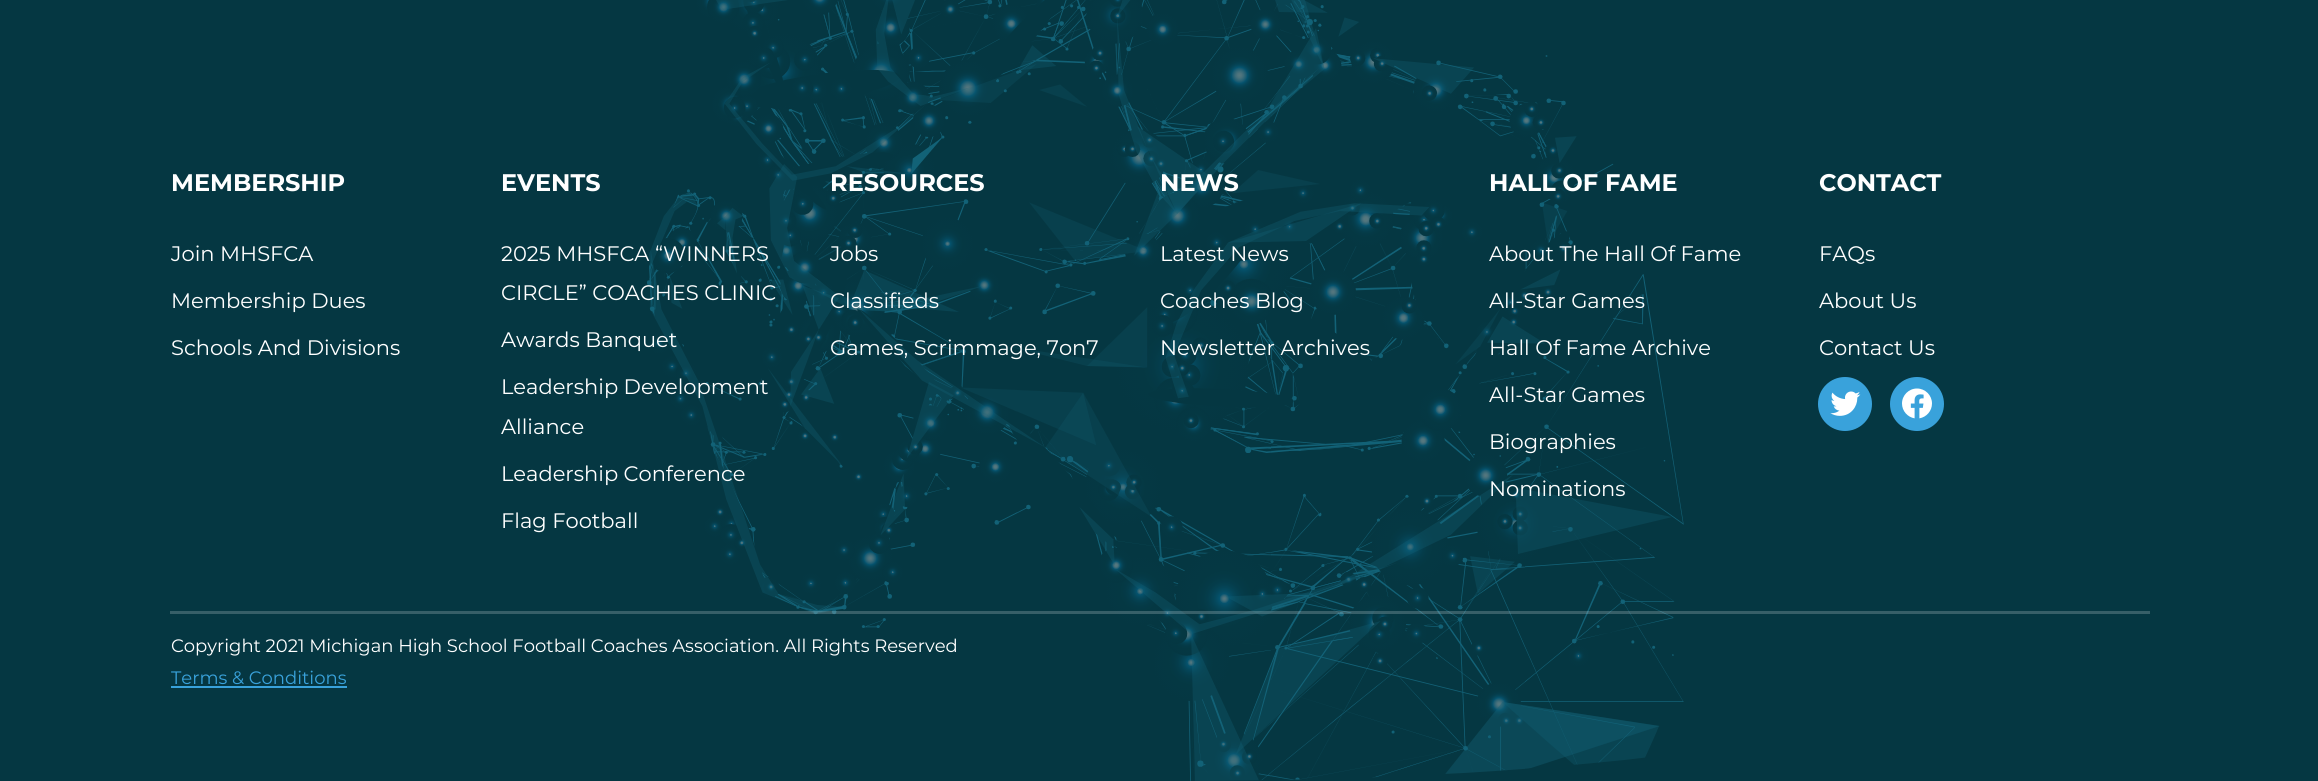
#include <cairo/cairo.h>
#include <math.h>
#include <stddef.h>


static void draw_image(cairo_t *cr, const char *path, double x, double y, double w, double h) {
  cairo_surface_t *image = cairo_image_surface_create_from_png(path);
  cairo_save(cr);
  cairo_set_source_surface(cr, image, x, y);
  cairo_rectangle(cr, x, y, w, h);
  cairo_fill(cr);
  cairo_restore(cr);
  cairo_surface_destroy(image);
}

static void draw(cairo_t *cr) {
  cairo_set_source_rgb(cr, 5 / 255.0, 55 / 255.0, 66 / 255.0);
  cairo_paint(cr);
  draw_image(cr, "images/1.png", 647, 0, 1037, 781);
  cairo_set_source_rgb(cr, 57 / 255.0, 162 / 255.0, 219 / 255.0);
  cairo_arc(cr, 1845, 404, 27, 0, 2 * M_PI);
  cairo_fill(cr);
  draw_image(cr, "images/2.png", 1830, 391, 31, 25);
  cairo_arc(cr, 1917, 404, 27, 0, 2 * M_PI);
  cairo_fill(cr);
  draw_image(cr, "images/3.png", 1902, 388, 30, 31);
  cairo_set_source_rgba(cr, 1, 1, 1, 0.2);
  cairo_rectangle(cr, 170, 611, 1980, 3);
  cairo_fill(cr);
  cairo_set_source_rgb(cr, 57 / 255.0, 162 / 255.0, 219 / 255.0);
  cairo_rectangle(cr, 171, 686, 176, 2);
  cairo_fill(cr);
  cairo_select_font_face(cr, "Montserrat", CAIRO_FONT_SLANT_NORMAL, CAIRO_FONT_WEIGHT_BOLD);
  cairo_set_font_size(cr, 24);
  cairo_set_source_rgb(cr, 1, 1, 1);
  cairo_move_to(cr, 171, 191);
  cairo_show_text(cr, "MEMBERSHIP");
  cairo_select_font_face(cr, "Montserrat", CAIRO_FONT_SLANT_NORMAL, CAIRO_FONT_WEIGHT_NORMAL);
  cairo_set_font_size(cr, 21);
  cairo_move_to(cr, 171, 261);
  cairo_show_text(cr, "Join MHSFCA");
  cairo_move_to(cr, 171, 308);
  cairo_show_text(cr, "Membership Dues");
  cairo_move_to(cr, 171, 355);
  cairo_show_text(cr, "Schools And Divisions");
  cairo_select_font_face(cr, "Montserrat", CAIRO_FONT_SLANT_NORMAL, CAIRO_FONT_WEIGHT_BOLD);
  cairo_set_font_size(cr, 24);
  cairo_move_to(cr, 501, 191);
  cairo_show_text(cr, "EVENTS");
  cairo_select_font_face(cr, "Montserrat", CAIRO_FONT_SLANT_NORMAL, CAIRO_FONT_WEIGHT_NORMAL);
  cairo_set_font_size(cr, 21);
  cairo_move_to(cr, 501, 261);
  cairo_show_text(cr, "2025 MHSFCA “WINNERS");
  cairo_move_to(cr, 501, 300);
  cairo_show_text(cr, "CIRCLE” COACHES CLINIC");
  cairo_move_to(cr, 501, 347);
  cairo_show_text(cr, "Awards Banquet");
  cairo_move_to(cr, 501, 394);
  cairo_show_text(cr, "Leadership Development");
  cairo_move_to(cr, 501, 434);
  cairo_show_text(cr, "Alliance");
  cairo_move_to(cr, 501, 481);
  cairo_show_text(cr, "Leadership Conference");
  cairo_move_to(cr, 501, 528);
  cairo_show_text(cr, "Flag Football");
  cairo_select_font_face(cr, "Montserrat", CAIRO_FONT_SLANT_NORMAL, CAIRO_FONT_WEIGHT_BOLD);
  cairo_set_font_size(cr, 24);
  cairo_move_to(cr, 830, 191);
  cairo_show_text(cr, "RESOURCES");
  cairo_select_font_face(cr, "Montserrat", CAIRO_FONT_SLANT_NORMAL, CAIRO_FONT_WEIGHT_NORMAL);
  cairo_set_font_size(cr, 21);
  cairo_move_to(cr, 830, 261);
  cairo_show_text(cr, "Jobs");
  cairo_move_to(cr, 830, 308);
  cairo_show_text(cr, "Classifieds");
  cairo_move_to(cr, 830, 355);
  cairo_show_text(cr, "Games, Scrimmage, 7on7");
  cairo_select_font_face(cr, "Montserrat", CAIRO_FONT_SLANT_NORMAL, CAIRO_FONT_WEIGHT_BOLD);
  cairo_set_font_size(cr, 24);
  cairo_move_to(cr, 1160, 191);
  cairo_show_text(cr, "NEWS");
  cairo_select_font_face(cr, "Montserrat", CAIRO_FONT_SLANT_NORMAL, CAIRO_FONT_WEIGHT_NORMAL);
  cairo_set_font_size(cr, 21);
  cairo_move_to(cr, 1160, 261);
  cairo_show_text(cr, "Latest News");
  cairo_move_to(cr, 1160, 308);
  cairo_show_text(cr, "Coaches Blog");
  cairo_move_to(cr, 1160, 355);
  cairo_show_text(cr, "Newsletter Archives");
  cairo_select_font_face(cr, "Montserrat", CAIRO_FONT_SLANT_NORMAL, CAIRO_FONT_WEIGHT_BOLD);
  cairo_set_font_size(cr, 24);
  cairo_move_to(cr, 1489, 191);
  cairo_show_text(cr, "HALL OF FAME");
  cairo_select_font_face(cr, "Montserrat", CAIRO_FONT_SLANT_NORMAL, CAIRO_FONT_WEIGHT_NORMAL);
  cairo_set_font_size(cr, 21);
  cairo_move_to(cr, 1489, 261);
  cairo_show_text(cr, "About The Hall Of Fame");
  cairo_move_to(cr, 1489, 308);
  cairo_show_text(cr, "All-Star Games");
  cairo_move_to(cr, 1489, 355);
  cairo_show_text(cr, "Hall Of Fame Archive");
  cairo_move_to(cr, 1489, 402);
  cairo_show_text(cr, "All-Star Games");
  cairo_move_to(cr, 1489, 449);
  cairo_show_text(cr, "Biographies");
  cairo_move_to(cr, 1489, 496);
  cairo_show_text(cr, "Nominations");
  cairo_select_font_face(cr, "Montserrat", CAIRO_FONT_SLANT_NORMAL, CAIRO_FONT_WEIGHT_BOLD);
  cairo_set_font_size(cr, 24);
  cairo_move_to(cr, 1819, 191);
  cairo_show_text(cr, "CONTACT");
  cairo_select_font_face(cr, "Montserrat", CAIRO_FONT_SLANT_NORMAL, CAIRO_FONT_WEIGHT_NORMAL);
  cairo_set_font_size(cr, 21);
  cairo_move_to(cr, 1819, 261);
  cairo_show_text(cr, "FAQs");
  cairo_move_to(cr, 1819, 308);
  cairo_show_text(cr, "About Us");
  cairo_move_to(cr, 1819, 355);
  cairo_show_text(cr, "Contact Us");
  cairo_set_font_size(cr, 18);
  cairo_move_to(cr, 171, 652);
  cairo_show_text(cr, "Copyright 2021 Michigan High School Football Coaches Association. All Rights Reserved");
  cairo_set_source_rgb(cr, 57 / 255.0, 162 / 255.0, 219 / 255.0);
  cairo_move_to(cr, 171, 684);
  cairo_show_text(cr, "Terms & Conditions");
}

int main(void) {
  cairo_surface_t *surface = cairo_image_surface_create(CAIRO_FORMAT_RGB24, 2318, 781);
  cairo_t *cr = cairo_create(surface);
  cairo_font_options_t *options = cairo_font_options_create();
  cairo_font_options_set_hint_metrics(options, CAIRO_HINT_METRICS_OFF);
  cairo_font_options_set_hint_style(options, CAIRO_HINT_STYLE_NONE);
  cairo_set_font_options(cr, options);
  cairo_set_miter_limit(cr, 4);
  draw(cr);
  cairo_surface_write_to_png(surface, "out.png");
  cairo_font_options_destroy(options);
  cairo_destroy(cr);
  cairo_surface_destroy(surface);
  return 0;
}
